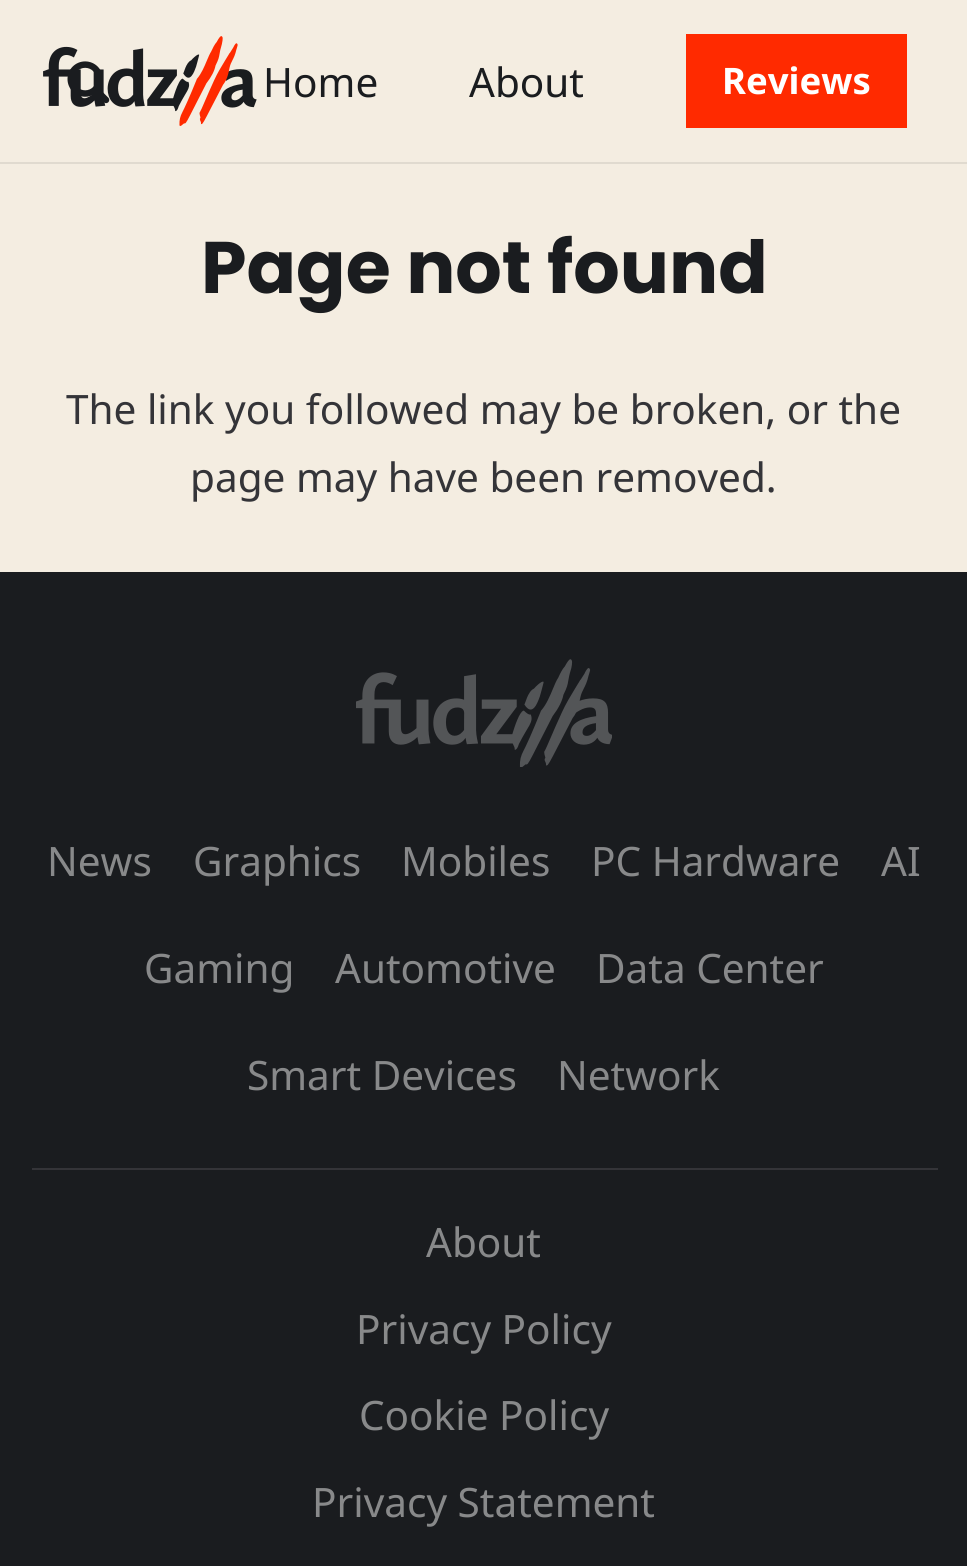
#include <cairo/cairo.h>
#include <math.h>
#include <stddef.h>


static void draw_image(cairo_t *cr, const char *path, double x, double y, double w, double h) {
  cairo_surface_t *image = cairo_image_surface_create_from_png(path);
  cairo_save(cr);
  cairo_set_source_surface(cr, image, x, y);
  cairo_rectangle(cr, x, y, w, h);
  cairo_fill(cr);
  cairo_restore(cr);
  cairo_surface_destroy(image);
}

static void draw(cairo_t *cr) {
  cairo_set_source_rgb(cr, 244 / 255.0, 237 / 255.0, 225 / 255.0);
  cairo_paint(cr);
  cairo_set_source_rgb(cr, 224 / 255.0, 218 / 255.0, 207 / 255.0);
  cairo_new_path(cr);
  cairo_move_to(cr, 0, 162);
  cairo_line_to(cr, 0, 164);
  cairo_line_to(cr, 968, 164);
  cairo_line_to(cr, 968, 2);
  cairo_line_to(cr, 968, 162);
  cairo_close_path(cr);
  cairo_fill(cr);
  draw_image(cr, "images/2.png", 67, 61, 43, 43);
  draw_image(cr, "images/1.png", 43, 36, 214, 90);
  cairo_set_source_rgb(cr, 1, 42 / 255.0, 0);
  cairo_rectangle(cr, 686, 34, 221, 94);
  cairo_fill(cr);
  cairo_set_source_rgb(cr, 26 / 255.0, 28 / 255.0, 31 / 255.0);
  cairo_rectangle(cr, 0, 572, 967, 994);
  cairo_fill(cr);
  draw_image(cr, "images/3.png", 356, 659, 256, 108);
  cairo_set_source_rgb(cr, 52 / 255.0, 52 / 255.0, 56 / 255.0);
  cairo_rectangle(cr, 32, 1168, 906, 2);
  cairo_fill(cr);
  cairo_select_font_face(cr, "Noto Sans", CAIRO_FONT_SLANT_NORMAL, CAIRO_FONT_WEIGHT_NORMAL);
  cairo_set_font_size(cr, 40.5);
  cairo_set_source_rgb(cr, 26 / 255.0, 28 / 255.0, 31 / 255.0);
  cairo_move_to(cr, 263, 97);
  cairo_show_text(cr, "Home");
  cairo_move_to(cr, 469, 97);
  cairo_show_text(cr, "About");
  cairo_select_font_face(cr, "Noto Sans", CAIRO_FONT_SLANT_NORMAL, CAIRO_FONT_WEIGHT_BOLD);
  cairo_set_font_size(cr, 36.5);
  cairo_set_source_rgb(cr, 1, 1, 1);
  cairo_move_to(cr, 722, 94);
  cairo_show_text(cr, "Reviews");
  cairo_select_font_face(cr, "Poppins", CAIRO_FONT_SLANT_NORMAL, CAIRO_FONT_WEIGHT_BOLD);
  cairo_set_font_size(cr, 73);
  cairo_set_source_rgb(cr, 26 / 255.0, 28 / 255.0, 31 / 255.0);
  cairo_move_to(cr, 201, 293);
  cairo_show_text(cr, "Page not found");
  cairo_select_font_face(cr, "Noto Sans", CAIRO_FONT_SLANT_NORMAL, CAIRO_FONT_WEIGHT_NORMAL);
  cairo_set_font_size(cr, 40.5);
  cairo_set_source_rgb(cr, 52 / 255.0, 52 / 255.0, 56 / 255.0);
  cairo_move_to(cr, 66, 424);
  cairo_show_text(cr, "The link you followed may be broken, or the");
  cairo_move_to(cr, 190, 492);
  cairo_show_text(cr, "page may have been removed.");
  cairo_set_source_rgb(cr, 136 / 255.0, 137 / 255.0, 138 / 255.0);
  cairo_move_to(cr, 47, 876);
  cairo_show_text(cr, "News");
  cairo_move_to(cr, 193, 876);
  cairo_show_text(cr, "Graphics");
  cairo_move_to(cr, 401, 876);
  cairo_show_text(cr, "Mobiles");
  cairo_move_to(cr, 591, 876);
  cairo_show_text(cr, "PC Hardware");
  cairo_move_to(cr, 881, 876);
  cairo_show_text(cr, "AI");
  cairo_move_to(cr, 144, 983);
  cairo_show_text(cr, "Gaming");
  cairo_move_to(cr, 335, 983);
  cairo_show_text(cr, "Automotive");
  cairo_move_to(cr, 596, 983);
  cairo_show_text(cr, "Data Center");
  cairo_move_to(cr, 247, 1090);
  cairo_show_text(cr, "Smart Devices");
  cairo_move_to(cr, 557, 1090);
  cairo_show_text(cr, "Network");
  cairo_move_to(cr, 426, 1257);
  cairo_show_text(cr, "About");
  cairo_move_to(cr, 356, 1344);
  cairo_show_text(cr, "Privacy Policy");
  cairo_move_to(cr, 359, 1430);
  cairo_show_text(cr, "Cookie Policy");
  cairo_move_to(cr, 312, 1517);
  cairo_show_text(cr, "Privacy Statement");
}

int main(void) {
  cairo_surface_t *surface = cairo_image_surface_create(CAIRO_FORMAT_RGB24, 967, 1566);
  cairo_t *cr = cairo_create(surface);
  cairo_font_options_t *options = cairo_font_options_create();
  cairo_font_options_set_hint_metrics(options, CAIRO_HINT_METRICS_OFF);
  cairo_font_options_set_hint_style(options, CAIRO_HINT_STYLE_NONE);
  cairo_set_font_options(cr, options);
  cairo_set_miter_limit(cr, 4);
  draw(cr);
  cairo_surface_write_to_png(surface, "out.png");
  cairo_font_options_destroy(options);
  cairo_destroy(cr);
  cairo_surface_destroy(surface);
  return 0;
}
